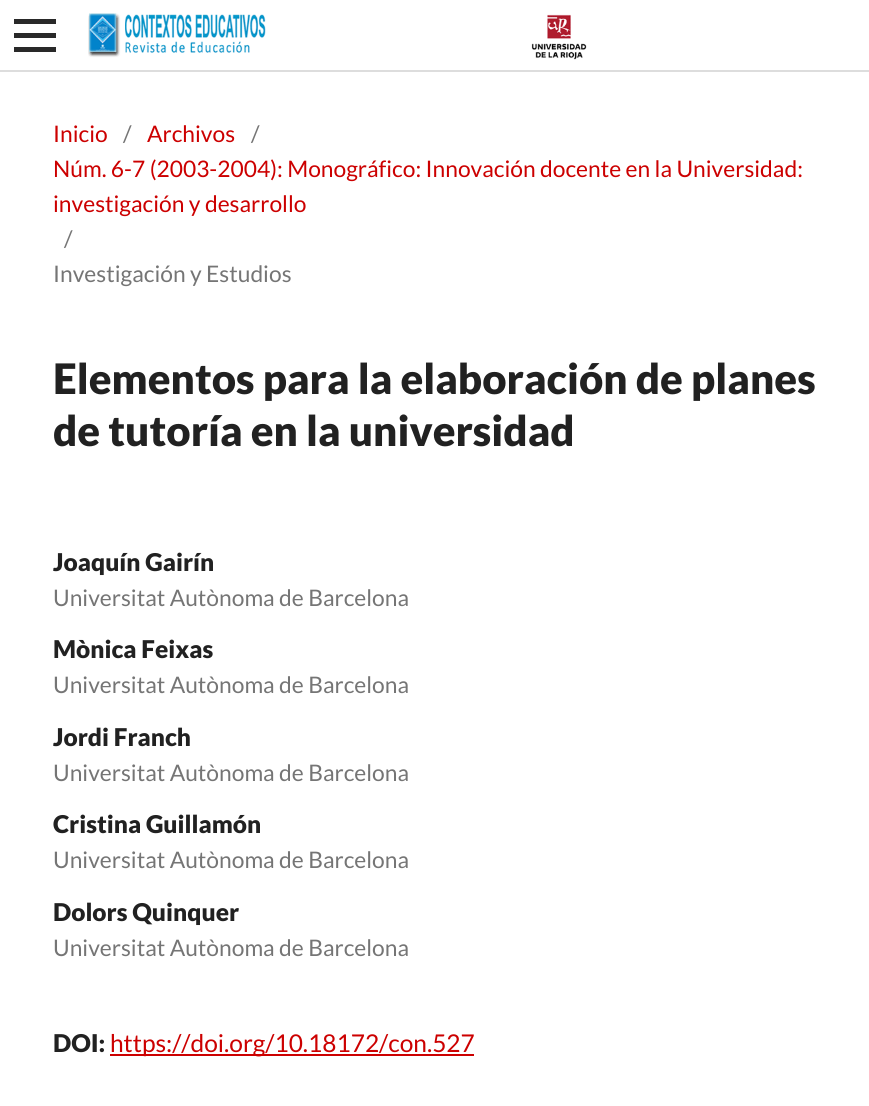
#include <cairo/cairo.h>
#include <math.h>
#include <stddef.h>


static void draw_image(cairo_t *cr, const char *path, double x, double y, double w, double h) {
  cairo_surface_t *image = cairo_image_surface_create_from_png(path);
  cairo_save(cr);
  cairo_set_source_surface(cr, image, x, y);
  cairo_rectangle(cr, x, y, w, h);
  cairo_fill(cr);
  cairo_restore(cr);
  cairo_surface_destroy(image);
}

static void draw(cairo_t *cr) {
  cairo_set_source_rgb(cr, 1, 1, 1);
  cairo_paint(cr);
  cairo_set_source_rgb(cr, 221 / 255.0, 221 / 255.0, 221 / 255.0);
  cairo_rectangle(cr, 0, 70, 869, 2);
  cairo_fill(cr);
  cairo_set_source_rgb(cr, 41 / 255.0, 41 / 255.0, 41 / 255.0);
  cairo_rectangle(cr, 14, 47, 42, 5);
  cairo_fill(cr);
  cairo_rectangle(cr, 14, 19, 42, 5);
  cairo_fill(cr);
  cairo_rectangle(cr, 14, 33, 42, 5);
  cairo_fill(cr);
  draw_image(cr, "images/1.png", 88, 13, 499, 47);
  cairo_set_source_rgb(cr, 204 / 255.0, 0, 0);
  cairo_rectangle(cr, 110, 1054, 364, 2);
  cairo_fill(cr);
  cairo_select_font_face(cr, "Lato", CAIRO_FONT_SLANT_NORMAL, CAIRO_FONT_WEIGHT_NORMAL);
  cairo_set_font_size(cr, 22.8);
  cairo_move_to(cr, 53, 142);
  cairo_show_text(cr, "Inicio");
  cairo_set_source_rgb(cr, 117 / 255.0, 117 / 255.0, 117 / 255.0);
  cairo_move_to(cr, 123, 142);
  cairo_show_text(cr, "/");
  cairo_set_source_rgb(cr, 204 / 255.0, 0, 0);
  cairo_move_to(cr, 147, 142);
  cairo_show_text(cr, "Archivos");
  cairo_set_source_rgb(cr, 117 / 255.0, 117 / 255.0, 117 / 255.0);
  cairo_move_to(cr, 251, 142);
  cairo_show_text(cr, "/");
  cairo_set_source_rgb(cr, 204 / 255.0, 0, 0);
  cairo_move_to(cr, 53, 177);
  cairo_show_text(cr, "Núm. 6-7 (2003-2004): Monográfico: Innovación docente en la Universidad:");
  cairo_move_to(cr, 53, 212);
  cairo_show_text(cr, "investigación y desarrollo");
  cairo_set_source_rgb(cr, 117 / 255.0, 117 / 255.0, 117 / 255.0);
  cairo_move_to(cr, 64, 247);
  cairo_show_text(cr, "/");
  cairo_move_to(cr, 53, 282);
  cairo_show_text(cr, "Investigación y Estudios");
  cairo_select_font_face(cr, "Lato Black", CAIRO_FONT_SLANT_NORMAL, CAIRO_FONT_WEIGHT_NORMAL);
  cairo_set_font_size(cr, 42);
  cairo_set_source_rgb(cr, 33 / 255.0, 33 / 255.0, 33 / 255.0);
  cairo_move_to(cr, 53, 394);
  cairo_show_text(cr, "Elementos para la elaboración de planes");
  cairo_move_to(cr, 53, 446);
  cairo_show_text(cr, "de tutoría en la universidad");
  cairo_set_font_size(cr, 24.5);
  cairo_move_to(cr, 53, 571);
  cairo_show_text(cr, "Joaquín Gairín");
  cairo_select_font_face(cr, "Lato", CAIRO_FONT_SLANT_NORMAL, CAIRO_FONT_WEIGHT_NORMAL);
  cairo_set_font_size(cr, 22.8);
  cairo_set_source_rgb(cr, 117 / 255.0, 117 / 255.0, 117 / 255.0);
  cairo_move_to(cr, 53, 606);
  cairo_show_text(cr, "Universitat Autònoma de Barcelona");
  cairo_select_font_face(cr, "Lato Black", CAIRO_FONT_SLANT_NORMAL, CAIRO_FONT_WEIGHT_NORMAL);
  cairo_set_font_size(cr, 24.5);
  cairo_set_source_rgb(cr, 33 / 255.0, 33 / 255.0, 33 / 255.0);
  cairo_move_to(cr, 53, 658);
  cairo_show_text(cr, "Mònica Feixas");
  cairo_select_font_face(cr, "Lato", CAIRO_FONT_SLANT_NORMAL, CAIRO_FONT_WEIGHT_NORMAL);
  cairo_set_font_size(cr, 22.8);
  cairo_set_source_rgb(cr, 117 / 255.0, 117 / 255.0, 117 / 255.0);
  cairo_move_to(cr, 53, 693);
  cairo_show_text(cr, "Universitat Autònoma de Barcelona");
  cairo_select_font_face(cr, "Lato Black", CAIRO_FONT_SLANT_NORMAL, CAIRO_FONT_WEIGHT_NORMAL);
  cairo_set_font_size(cr, 24.5);
  cairo_set_source_rgb(cr, 33 / 255.0, 33 / 255.0, 33 / 255.0);
  cairo_move_to(cr, 53, 746);
  cairo_show_text(cr, "Jordi Franch");
  cairo_select_font_face(cr, "Lato", CAIRO_FONT_SLANT_NORMAL, CAIRO_FONT_WEIGHT_NORMAL);
  cairo_set_font_size(cr, 22.8);
  cairo_set_source_rgb(cr, 117 / 255.0, 117 / 255.0, 117 / 255.0);
  cairo_move_to(cr, 53, 781);
  cairo_show_text(cr, "Universitat Autònoma de Barcelona");
  cairo_select_font_face(cr, "Lato Black", CAIRO_FONT_SLANT_NORMAL, CAIRO_FONT_WEIGHT_NORMAL);
  cairo_set_font_size(cr, 24.5);
  cairo_set_source_rgb(cr, 33 / 255.0, 33 / 255.0, 33 / 255.0);
  cairo_move_to(cr, 53, 833);
  cairo_show_text(cr, "Cristina Guillamón");
  cairo_select_font_face(cr, "Lato", CAIRO_FONT_SLANT_NORMAL, CAIRO_FONT_WEIGHT_NORMAL);
  cairo_set_font_size(cr, 22.8);
  cairo_set_source_rgb(cr, 117 / 255.0, 117 / 255.0, 117 / 255.0);
  cairo_move_to(cr, 53, 868);
  cairo_show_text(cr, "Universitat Autònoma de Barcelona");
  cairo_select_font_face(cr, "Lato Black", CAIRO_FONT_SLANT_NORMAL, CAIRO_FONT_WEIGHT_NORMAL);
  cairo_set_font_size(cr, 24.5);
  cairo_set_source_rgb(cr, 33 / 255.0, 33 / 255.0, 33 / 255.0);
  cairo_move_to(cr, 53, 921);
  cairo_show_text(cr, "Dolors Quinquer");
  cairo_select_font_face(cr, "Lato", CAIRO_FONT_SLANT_NORMAL, CAIRO_FONT_WEIGHT_NORMAL);
  cairo_set_font_size(cr, 22.8);
  cairo_set_source_rgb(cr, 117 / 255.0, 117 / 255.0, 117 / 255.0);
  cairo_move_to(cr, 53, 956);
  cairo_show_text(cr, "Universitat Autònoma de Barcelona");
  cairo_select_font_face(cr, "Lato Black", CAIRO_FONT_SLANT_NORMAL, CAIRO_FONT_WEIGHT_NORMAL);
  cairo_set_font_size(cr, 24.5);
  cairo_set_source_rgb(cr, 33 / 255.0, 33 / 255.0, 33 / 255.0);
  cairo_move_to(cr, 53, 1052);
  cairo_show_text(cr, "DOI:");
  cairo_select_font_face(cr, "Lato", CAIRO_FONT_SLANT_NORMAL, CAIRO_FONT_WEIGHT_NORMAL);
  cairo_set_source_rgb(cr, 204 / 255.0, 0, 0);
  cairo_move_to(cr, 110, 1052);
  cairo_show_text(cr, "https://doi.org/10.18172/con.527");
}

int main(void) {
  cairo_surface_t *surface = cairo_image_surface_create(CAIRO_FORMAT_RGB24, 869, 1106);
  cairo_t *cr = cairo_create(surface);
  cairo_font_options_t *options = cairo_font_options_create();
  cairo_font_options_set_hint_metrics(options, CAIRO_HINT_METRICS_OFF);
  cairo_font_options_set_hint_style(options, CAIRO_HINT_STYLE_NONE);
  cairo_set_font_options(cr, options);
  cairo_set_miter_limit(cr, 4);
  draw(cr);
  cairo_surface_write_to_png(surface, "out.png");
  cairo_font_options_destroy(options);
  cairo_destroy(cr);
  cairo_surface_destroy(surface);
  return 0;
}
